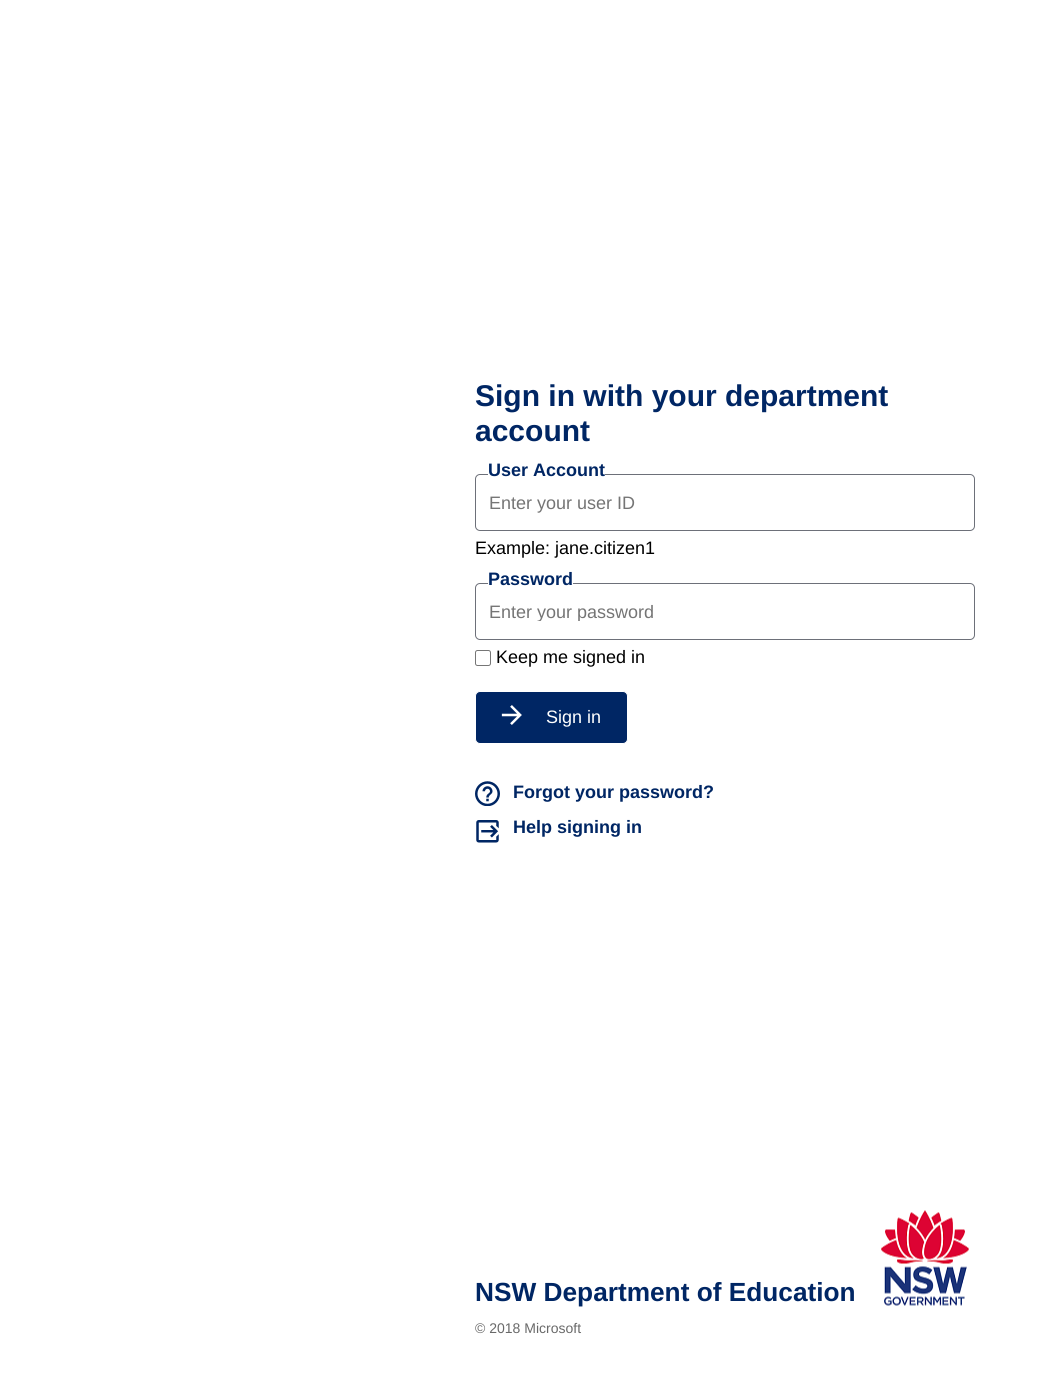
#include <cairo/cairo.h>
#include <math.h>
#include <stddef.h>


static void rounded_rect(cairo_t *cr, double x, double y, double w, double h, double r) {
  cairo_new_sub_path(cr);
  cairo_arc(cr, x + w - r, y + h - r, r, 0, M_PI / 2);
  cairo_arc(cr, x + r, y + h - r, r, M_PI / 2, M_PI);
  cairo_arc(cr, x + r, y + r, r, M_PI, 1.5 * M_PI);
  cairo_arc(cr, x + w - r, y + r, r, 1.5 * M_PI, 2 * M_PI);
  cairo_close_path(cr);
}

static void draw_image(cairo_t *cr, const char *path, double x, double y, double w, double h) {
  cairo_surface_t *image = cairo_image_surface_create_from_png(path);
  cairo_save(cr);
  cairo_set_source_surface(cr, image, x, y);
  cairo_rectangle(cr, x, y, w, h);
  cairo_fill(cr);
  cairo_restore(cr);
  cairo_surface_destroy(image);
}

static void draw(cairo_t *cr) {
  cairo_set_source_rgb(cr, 1, 1, 1);
  cairo_paint(cr);
  rounded_rect(cr, 475.5, 474.5, 499, 56, 4.5);
  cairo_set_source_rgb(cr, 109 / 255.0, 112 / 255.0, 121 / 255.0);
  cairo_set_line_width(cr, 1);
  cairo_stroke(cr);
  cairo_set_source_rgb(cr, 1, 1, 1);
  cairo_rectangle(cr, 488, 474, 117, 1);
  cairo_fill(cr);
  rounded_rect(cr, 475.5, 583.5, 499, 56, 4.5);
  cairo_set_source_rgb(cr, 109 / 255.0, 112 / 255.0, 121 / 255.0);
  cairo_stroke(cr);
  cairo_set_source_rgb(cr, 1, 1, 1);
  cairo_rectangle(cr, 488, 583, 85, 1);
  cairo_fill(cr);
  rounded_rect(cr, 475.5, 650.5, 15, 15, 2);
  cairo_set_source_rgb(cr, 118 / 255.0, 118 / 255.0, 118 / 255.0);
  cairo_stroke(cr);
  cairo_set_source_rgb(cr, 0, 38 / 255.0, 100 / 255.0);
  rounded_rect(cr, 475.5, 691.5, 152, 52, 4.5);
  cairo_fill_preserve(cr);
  cairo_set_source_rgb(cr, 1, 1, 1);
  cairo_stroke(cr);
  draw_image(cr, "images/1.png", 501, 705, 21, 20);
  draw_image(cr, "images/2.png", 475, 781, 25, 25);
  draw_image(cr, "images/3.png", 476, 820, 23, 23);
  draw_image(cr, "images/4.png", 881, 1210, 88, 96);
  cairo_select_font_face(cr, "Liberation Sans", CAIRO_FONT_SLANT_NORMAL, CAIRO_FONT_WEIGHT_BOLD);
  cairo_set_font_size(cr, 30);
  cairo_set_source_rgb(cr, 0, 38 / 255.0, 100 / 255.0);
  cairo_move_to(cr, 475, 406);
  cairo_show_text(cr, "Sign in with your department");
  cairo_move_to(cr, 475, 441);
  cairo_show_text(cr, "account");
  cairo_set_font_size(cr, 18);
  cairo_move_to(cr, 488, 476);
  cairo_show_text(cr, "User Account");
  cairo_select_font_face(cr, "Liberation Sans", CAIRO_FONT_SLANT_NORMAL, CAIRO_FONT_WEIGHT_NORMAL);
  cairo_set_source_rgb(cr, 117 / 255.0, 117 / 255.0, 117 / 255.0);
  cairo_move_to(cr, 489, 509);
  cairo_show_text(cr, "Enter your user ID");
  cairo_set_source_rgb(cr, 0, 0, 0);
  cairo_move_to(cr, 475, 554);
  cairo_show_text(cr, "Example: jane.citizen1");
  cairo_select_font_face(cr, "Liberation Sans", CAIRO_FONT_SLANT_NORMAL, CAIRO_FONT_WEIGHT_BOLD);
  cairo_set_source_rgb(cr, 0, 38 / 255.0, 100 / 255.0);
  cairo_move_to(cr, 488, 585);
  cairo_show_text(cr, "Password");
  cairo_save(cr);
  cairo_rectangle(cr, 489, 601, 427, 20);
  cairo_clip(cr);
  cairo_select_font_face(cr, "Liberation Sans", CAIRO_FONT_SLANT_NORMAL, CAIRO_FONT_WEIGHT_NORMAL);
  cairo_set_source_rgb(cr, 117 / 255.0, 117 / 255.0, 117 / 255.0);
  cairo_move_to(cr, 489, 618);
  cairo_show_text(cr, "Enter your password");
  cairo_restore(cr);
  cairo_select_font_face(cr, "Liberation Sans", CAIRO_FONT_SLANT_NORMAL, CAIRO_FONT_WEIGHT_NORMAL);
  cairo_set_source_rgb(cr, 0, 0, 0);
  cairo_move_to(cr, 496, 663);
  cairo_show_text(cr, "Keep me signed in");
  cairo_set_source_rgb(cr, 1, 1, 1);
  cairo_move_to(cr, 546, 723);
  cairo_show_text(cr, "Sign in");
  cairo_select_font_face(cr, "Liberation Sans", CAIRO_FONT_SLANT_NORMAL, CAIRO_FONT_WEIGHT_BOLD);
  cairo_set_source_rgb(cr, 0, 38 / 255.0, 100 / 255.0);
  cairo_move_to(cr, 513, 798);
  cairo_show_text(cr, "Forgot your password?");
  cairo_move_to(cr, 513, 833);
  cairo_show_text(cr, "Help signing in");
  cairo_set_font_size(cr, 26.25);
  cairo_move_to(cr, 475, 1301);
  cairo_show_text(cr, "NSW Department of Education");
  cairo_select_font_face(cr, "Liberation Sans", CAIRO_FONT_SLANT_NORMAL, CAIRO_FONT_WEIGHT_NORMAL);
  cairo_set_font_size(cr, 14);
  cairo_set_source_rgb(cr, 105 / 255.0, 105 / 255.0, 105 / 255.0);
  cairo_move_to(cr, 475, 1333);
  cairo_show_text(cr, "© 2018 Microsoft");
}

int main(void) {
  cairo_surface_t *surface = cairo_image_surface_create(CAIRO_FORMAT_RGB24, 1037, 1385);
  cairo_t *cr = cairo_create(surface);
  cairo_font_options_t *options = cairo_font_options_create();
  cairo_font_options_set_hint_metrics(options, CAIRO_HINT_METRICS_OFF);
  cairo_font_options_set_hint_style(options, CAIRO_HINT_STYLE_NONE);
  cairo_set_font_options(cr, options);
  cairo_set_miter_limit(cr, 4);
  draw(cr);
  cairo_surface_write_to_png(surface, "out.png");
  cairo_font_options_destroy(options);
  cairo_destroy(cr);
  cairo_surface_destroy(surface);
  return 0;
}
